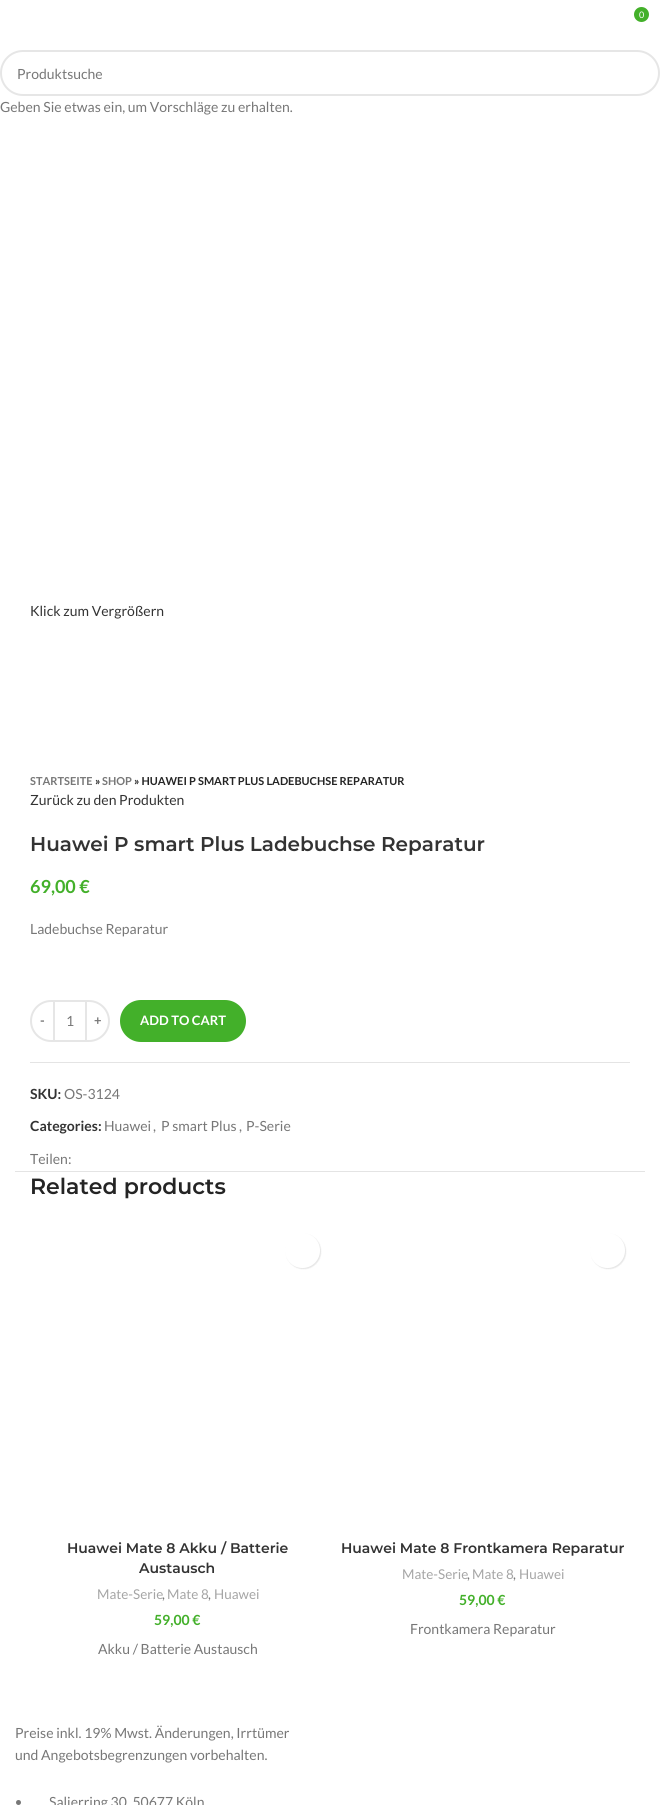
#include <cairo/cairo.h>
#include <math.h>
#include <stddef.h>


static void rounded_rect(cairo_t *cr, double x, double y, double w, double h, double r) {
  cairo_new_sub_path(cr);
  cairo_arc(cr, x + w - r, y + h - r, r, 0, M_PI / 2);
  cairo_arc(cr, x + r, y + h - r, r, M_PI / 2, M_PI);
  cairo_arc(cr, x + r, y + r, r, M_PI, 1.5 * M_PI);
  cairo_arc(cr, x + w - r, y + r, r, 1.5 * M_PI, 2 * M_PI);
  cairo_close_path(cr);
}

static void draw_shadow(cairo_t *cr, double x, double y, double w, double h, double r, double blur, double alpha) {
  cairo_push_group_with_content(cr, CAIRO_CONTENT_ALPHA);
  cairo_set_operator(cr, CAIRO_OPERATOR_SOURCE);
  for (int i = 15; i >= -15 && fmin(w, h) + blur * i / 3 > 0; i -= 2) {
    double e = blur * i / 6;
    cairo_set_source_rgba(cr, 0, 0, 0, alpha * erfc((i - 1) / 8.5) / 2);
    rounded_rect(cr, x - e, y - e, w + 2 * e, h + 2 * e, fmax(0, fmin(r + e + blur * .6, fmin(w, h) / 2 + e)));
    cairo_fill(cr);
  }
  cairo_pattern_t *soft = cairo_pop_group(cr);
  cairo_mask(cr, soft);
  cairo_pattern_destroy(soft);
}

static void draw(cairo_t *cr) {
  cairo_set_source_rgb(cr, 1, 1, 1);
  cairo_paint(cr);
  cairo_set_source_rgb(cr, 67 / 255.0, 176 / 255.0, 42 / 255.0);
  cairo_arc(cr, 641.5, 14.5, 7.5, 0, 2 * M_PI);
  cairo_fill(cr);
  cairo_new_path(cr);
  cairo_move_to(cr, 51, 1001);
  cairo_line_to(cr, 54, 1001);
  cairo_line_to(cr, 54, 1041);
  cairo_line_to(cr, 51, 1041);
  cairo_curve_to(cr, 40, 1041, 31, 1032, 31, 1021);
  cairo_curve_to(cr, 31, 1010, 40, 1001, 51, 1001);
  cairo_close_path(cr);
  cairo_set_source_rgb(cr, 230 / 255.0, 230 / 255.0, 230 / 255.0);
  cairo_stroke(cr);
  cairo_rectangle(cr, 55, 1000, 30, 2);
  cairo_fill(cr);
  cairo_rectangle(cr, 55, 1040, 30, 2);
  cairo_fill(cr);
  cairo_new_path(cr);
  cairo_move_to(cr, 86, 1001);
  cairo_line_to(cr, 89, 1001);
  cairo_curve_to(cr, 100, 1001, 109, 1010, 109, 1021);
  cairo_curve_to(cr, 109, 1032, 100, 1041, 89, 1041);
  cairo_line_to(cr, 86, 1041);
  cairo_close_path(cr);
  cairo_stroke(cr);
  cairo_set_source_rgb(cr, 67 / 255.0, 176 / 255.0, 42 / 255.0);
  rounded_rect(cr, 120, 1000, 126, 42, 21);
  cairo_fill(cr);
  cairo_set_source_rgb(cr, 228 / 255.0, 228 / 255.0, 228 / 255.0);
  cairo_rectangle(cr, 30, 1062, 600, 1);
  cairo_fill(cr);
  cairo_rectangle(cr, 15, 1171, 630, 1);
  cairo_fill(cr);
  cairo_set_source_rgb(cr, 0, 0, 0);
  draw_shadow(cr, 286, 1234, 35, 35, 17.5, 0.5, 0.1);
  cairo_set_source_rgb(cr, 1, 1, 1);
  cairo_arc(cr, 302.5, 1250.5, 17.5, 0, 2 * M_PI);
  cairo_fill(cr);
  cairo_set_source_rgb(cr, 0, 0, 0);
  draw_shadow(cr, 591, 1234, 35, 35, 17.5, 0.5, 0.1);
  cairo_set_source_rgb(cr, 1, 1, 1);
  cairo_arc(cr, 607.5, 1250.5, 17.5, 0, 2 * M_PI);
  cairo_fill(cr);
  cairo_set_source_rgb(cr, 119 / 255.0, 119 / 255.0, 119 / 255.0);
  cairo_arc(cr, 18.5, 1802.5, 2.5, 0, 2 * M_PI);
  cairo_fill(cr);
  rounded_rect(cr, 1, 51, 658, 44, 22);
  cairo_set_source_rgb(cr, 230 / 255.0, 230 / 255.0, 230 / 255.0);
  cairo_stroke(cr);
  cairo_select_font_face(cr, "Lato", CAIRO_FONT_SLANT_NORMAL, CAIRO_FONT_WEIGHT_NORMAL);
  cairo_set_font_size(cr, 9);
  cairo_set_source_rgb(cr, 1, 1, 1);
  cairo_move_to(cr, 639, 18);
  cairo_show_text(cr, "0");
  cairo_set_font_size(cr, 14);
  cairo_set_source_rgb(cr, 51 / 255.0, 51 / 255.0, 51 / 255.0);
  cairo_move_to(cr, 30, 616);
  cairo_show_text(cr, "Klick zum Vergrößern");
  cairo_select_font_face(cr, "Lato", CAIRO_FONT_SLANT_NORMAL, CAIRO_FONT_WEIGHT_BOLD);
  cairo_set_font_size(cr, 11);
  cairo_set_source_rgb(cr, 119 / 255.0, 119 / 255.0, 119 / 255.0);
  cairo_move_to(cr, 30, 785);
  cairo_show_text(cr, "STARTSEITE");
  cairo_set_source_rgb(cr, 36 / 255.0, 36 / 255.0, 36 / 255.0);
  cairo_move_to(cr, 95, 785);
  cairo_show_text(cr, "»");
  cairo_set_source_rgb(cr, 119 / 255.0, 119 / 255.0, 119 / 255.0);
  cairo_move_to(cr, 102, 785);
  cairo_show_text(cr, "SHOP");
  cairo_set_source_rgb(cr, 36 / 255.0, 36 / 255.0, 36 / 255.0);
  cairo_move_to(cr, 134, 785);
  cairo_show_text(cr, "» HUAWEI P SMART PLUS LADEBUCHSE REPARATUR");
  cairo_select_font_face(cr, "Lato", CAIRO_FONT_SLANT_NORMAL, CAIRO_FONT_WEIGHT_NORMAL);
  cairo_set_font_size(cr, 14);
  cairo_set_source_rgb(cr, 51 / 255.0, 51 / 255.0, 51 / 255.0);
  cairo_move_to(cr, 30, 805);
  cairo_show_text(cr, "Zurück zu den Produkten");
  cairo_select_font_face(cr, "Montserrat SemiBold", CAIRO_FONT_SLANT_NORMAL, CAIRO_FONT_WEIGHT_NORMAL);
  cairo_set_font_size(cr, 20);
  cairo_move_to(cr, 30, 851);
  cairo_show_text(cr, "Huawei P smart Plus Ladebuchse Reparatur");
  cairo_select_font_face(cr, "Lato", CAIRO_FONT_SLANT_NORMAL, CAIRO_FONT_WEIGHT_BOLD);
  cairo_set_font_size(cr, 18);
  cairo_set_source_rgb(cr, 67 / 255.0, 176 / 255.0, 42 / 255.0);
  cairo_move_to(cr, 30, 893);
  cairo_show_text(cr, "69,00 €");
  cairo_select_font_face(cr, "Lato", CAIRO_FONT_SLANT_NORMAL, CAIRO_FONT_WEIGHT_NORMAL);
  cairo_set_font_size(cr, 14);
  cairo_set_source_rgb(cr, 119 / 255.0, 119 / 255.0, 119 / 255.0);
  cairo_move_to(cr, 30, 934);
  cairo_show_text(cr, "Ladebuchse Reparatur");
  cairo_select_font_face(cr, "Lato", CAIRO_FONT_SLANT_NORMAL, CAIRO_FONT_WEIGHT_BOLD);
  cairo_set_font_size(cr, 13);
  cairo_move_to(cr, 40, 1025);
  cairo_show_text(cr, "-");
  cairo_select_font_face(cr, "Lato", CAIRO_FONT_SLANT_NORMAL, CAIRO_FONT_WEIGHT_NORMAL);
  cairo_set_font_size(cr, 14);
  cairo_move_to(cr, 66, 1026);
  cairo_show_text(cr, "1");
  cairo_select_font_face(cr, "Lato", CAIRO_FONT_SLANT_NORMAL, CAIRO_FONT_WEIGHT_BOLD);
  cairo_set_font_size(cr, 13);
  cairo_move_to(cr, 94, 1025);
  cairo_show_text(cr, "+");
  cairo_set_source_rgb(cr, 1, 1, 1);
  cairo_move_to(cr, 140, 1025);
  cairo_show_text(cr, "ADD TO CART");
  cairo_set_font_size(cr, 14);
  cairo_set_source_rgb(cr, 51 / 255.0, 51 / 255.0, 51 / 255.0);
  cairo_move_to(cr, 30, 1099);
  cairo_show_text(cr, "SKU:");
  cairo_select_font_face(cr, "Lato", CAIRO_FONT_SLANT_NORMAL, CAIRO_FONT_WEIGHT_NORMAL);
  cairo_set_source_rgb(cr, 119 / 255.0, 119 / 255.0, 119 / 255.0);
  cairo_move_to(cr, 64, 1099);
  cairo_show_text(cr, "OS-3124");
  cairo_select_font_face(cr, "Lato", CAIRO_FONT_SLANT_NORMAL, CAIRO_FONT_WEIGHT_BOLD);
  cairo_set_source_rgb(cr, 51 / 255.0, 51 / 255.0, 51 / 255.0);
  cairo_move_to(cr, 30, 1131);
  cairo_show_text(cr, "Categories:");
  cairo_select_font_face(cr, "Lato", CAIRO_FONT_SLANT_NORMAL, CAIRO_FONT_WEIGHT_NORMAL);
  cairo_set_source_rgb(cr, 119 / 255.0, 119 / 255.0, 119 / 255.0);
  cairo_move_to(cr, 104, 1131);
  cairo_show_text(cr, "Huawei");
  cairo_move_to(cr, 153, 1131);
  cairo_show_text(cr, ",");
  cairo_move_to(cr, 161, 1131);
  cairo_show_text(cr, "P smart Plus");
  cairo_move_to(cr, 239, 1131);
  cairo_show_text(cr, ",");
  cairo_move_to(cr, 246, 1131);
  cairo_show_text(cr, "P-Serie");
  cairo_move_to(cr, 30, 1164);
  cairo_show_text(cr, "Teilen:");
  cairo_select_font_face(cr, "Montserrat SemiBold", CAIRO_FONT_SLANT_NORMAL, CAIRO_FONT_WEIGHT_NORMAL);
  cairo_set_font_size(cr, 22);
  cairo_set_source_rgb(cr, 36 / 255.0, 36 / 255.0, 36 / 255.0);
  cairo_move_to(cr, 30, 1194);
  cairo_show_text(cr, "Related products");
  cairo_set_font_size(cr, 14);
  cairo_set_source_rgb(cr, 51 / 255.0, 51 / 255.0, 51 / 255.0);
  cairo_move_to(cr, 67, 1553);
  cairo_show_text(cr, "Huawei Mate 8 Akku / Batterie");
  cairo_move_to(cr, 139, 1573);
  cairo_show_text(cr, "Austausch");
  cairo_select_font_face(cr, "Lato", CAIRO_FONT_SLANT_NORMAL, CAIRO_FONT_WEIGHT_NORMAL);
  cairo_set_font_size(cr, 13.5);
  cairo_set_source_rgb(cr, 165 / 255.0, 165 / 255.0, 165 / 255.0);
  cairo_move_to(cr, 97, 1599);
  cairo_show_text(cr, "Mate-Serie");
  cairo_set_source_rgb(cr, 119 / 255.0, 119 / 255.0, 119 / 255.0);
  cairo_move_to(cr, 162, 1599);
  cairo_show_text(cr, ",");
  cairo_set_source_rgb(cr, 165 / 255.0, 165 / 255.0, 165 / 255.0);
  cairo_move_to(cr, 167, 1599);
  cairo_show_text(cr, "Mate 8");
  cairo_set_source_rgb(cr, 119 / 255.0, 119 / 255.0, 119 / 255.0);
  cairo_move_to(cr, 208, 1599);
  cairo_show_text(cr, ",");
  cairo_set_source_rgb(cr, 165 / 255.0, 165 / 255.0, 165 / 255.0);
  cairo_move_to(cr, 214, 1599);
  cairo_show_text(cr, "Huawei");
  cairo_select_font_face(cr, "Lato", CAIRO_FONT_SLANT_NORMAL, CAIRO_FONT_WEIGHT_BOLD);
  cairo_set_font_size(cr, 14);
  cairo_set_source_rgb(cr, 67 / 255.0, 176 / 255.0, 42 / 255.0);
  cairo_move_to(cr, 154, 1625);
  cairo_show_text(cr, "59,00 €");
  cairo_select_font_face(cr, "Lato", CAIRO_FONT_SLANT_NORMAL, CAIRO_FONT_WEIGHT_NORMAL);
  cairo_set_source_rgb(cr, 119 / 255.0, 119 / 255.0, 119 / 255.0);
  cairo_move_to(cr, 98, 1654);
  cairo_show_text(cr, "Akku / Batterie Austausch");
  cairo_select_font_face(cr, "Montserrat SemiBold", CAIRO_FONT_SLANT_NORMAL, CAIRO_FONT_WEIGHT_NORMAL);
  cairo_set_source_rgb(cr, 51 / 255.0, 51 / 255.0, 51 / 255.0);
  cairo_move_to(cr, 341, 1553);
  cairo_show_text(cr, "Huawei Mate 8 Frontkamera Reparatur");
  cairo_select_font_face(cr, "Lato", CAIRO_FONT_SLANT_NORMAL, CAIRO_FONT_WEIGHT_NORMAL);
  cairo_set_font_size(cr, 13.5);
  cairo_set_source_rgb(cr, 165 / 255.0, 165 / 255.0, 165 / 255.0);
  cairo_move_to(cr, 402, 1579);
  cairo_show_text(cr, "Mate-Serie");
  cairo_set_source_rgb(cr, 119 / 255.0, 119 / 255.0, 119 / 255.0);
  cairo_move_to(cr, 467, 1579);
  cairo_show_text(cr, ",");
  cairo_set_source_rgb(cr, 165 / 255.0, 165 / 255.0, 165 / 255.0);
  cairo_move_to(cr, 472, 1579);
  cairo_show_text(cr, "Mate 8");
  cairo_set_source_rgb(cr, 119 / 255.0, 119 / 255.0, 119 / 255.0);
  cairo_move_to(cr, 513, 1579);
  cairo_show_text(cr, ",");
  cairo_set_source_rgb(cr, 165 / 255.0, 165 / 255.0, 165 / 255.0);
  cairo_move_to(cr, 519, 1579);
  cairo_show_text(cr, "Huawei");
  cairo_select_font_face(cr, "Lato", CAIRO_FONT_SLANT_NORMAL, CAIRO_FONT_WEIGHT_BOLD);
  cairo_set_font_size(cr, 14);
  cairo_set_source_rgb(cr, 67 / 255.0, 176 / 255.0, 42 / 255.0);
  cairo_move_to(cr, 459, 1605);
  cairo_show_text(cr, "59,00 €");
  cairo_select_font_face(cr, "Lato", CAIRO_FONT_SLANT_NORMAL, CAIRO_FONT_WEIGHT_NORMAL);
  cairo_set_source_rgb(cr, 119 / 255.0, 119 / 255.0, 119 / 255.0);
  cairo_move_to(cr, 410, 1634);
  cairo_show_text(cr, "Frontkamera Reparatur");
  cairo_move_to(cr, 15, 1738);
  cairo_show_text(cr, "Preise inkl. 19% Mwst. Änderungen, Irrtümer");
  cairo_move_to(cr, 15, 1760);
  cairo_show_text(cr, "und Angebotsbegrenzungen vorbehalten.");
  cairo_move_to(cr, 49, 1807);
  cairo_show_text(cr, "Salierring 30, 50677 Köln");
  cairo_move_to(cr, 17, 79);
  cairo_show_text(cr, "Produktsuche");
  cairo_move_to(cr, 0, 112);
  cairo_show_text(cr, "Geben Sie etwas ein, um Vorschläge zu erhalten.");
}

int main(void) {
  cairo_surface_t *surface = cairo_image_surface_create(CAIRO_FORMAT_RGB24, 660, 1805);
  cairo_t *cr = cairo_create(surface);
  cairo_font_options_t *options = cairo_font_options_create();
  cairo_font_options_set_hint_metrics(options, CAIRO_HINT_METRICS_OFF);
  cairo_font_options_set_hint_style(options, CAIRO_HINT_STYLE_NONE);
  cairo_set_font_options(cr, options);
  cairo_set_miter_limit(cr, 4);
  draw(cr);
  cairo_surface_write_to_png(surface, "out.png");
  cairo_font_options_destroy(options);
  cairo_destroy(cr);
  cairo_surface_destroy(surface);
  return 0;
}
